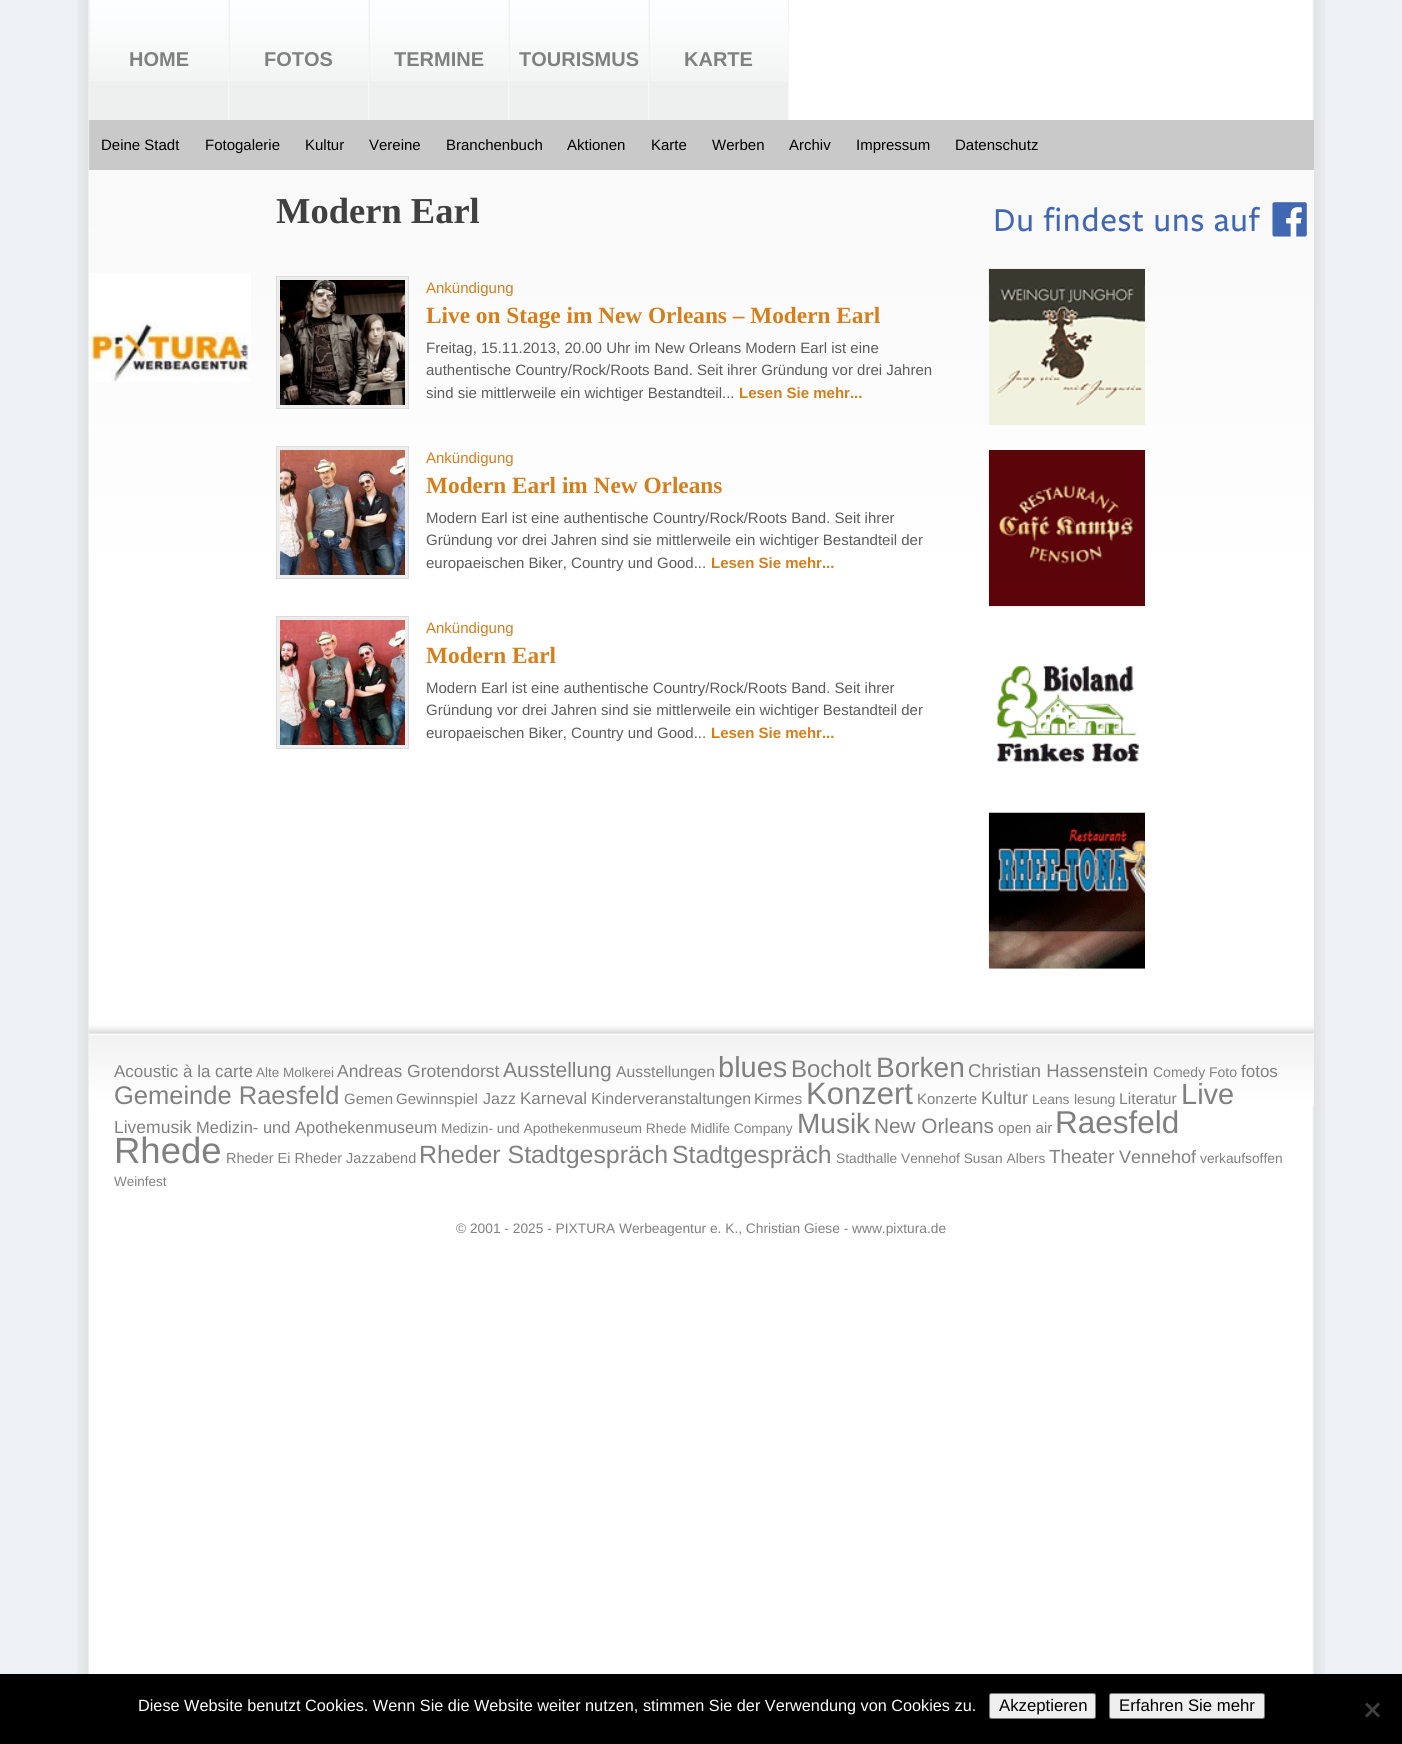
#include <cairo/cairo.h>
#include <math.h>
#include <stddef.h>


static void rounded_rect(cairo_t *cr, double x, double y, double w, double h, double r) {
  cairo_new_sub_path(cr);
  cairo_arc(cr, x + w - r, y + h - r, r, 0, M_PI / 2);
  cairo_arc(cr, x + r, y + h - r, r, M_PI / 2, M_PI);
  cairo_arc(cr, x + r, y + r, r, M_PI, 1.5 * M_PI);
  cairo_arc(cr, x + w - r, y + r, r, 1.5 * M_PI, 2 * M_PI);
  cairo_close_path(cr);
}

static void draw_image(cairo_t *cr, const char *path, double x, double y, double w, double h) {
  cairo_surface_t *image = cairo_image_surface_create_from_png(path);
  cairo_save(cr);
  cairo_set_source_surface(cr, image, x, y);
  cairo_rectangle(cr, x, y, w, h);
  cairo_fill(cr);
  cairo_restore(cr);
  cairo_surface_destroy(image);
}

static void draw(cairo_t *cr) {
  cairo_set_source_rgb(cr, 238 / 255.0, 241 / 255.0, 244 / 255.0);
  cairo_paint(cr);
  draw_image(cr, "images/1.png", 77, 0, 1248, 1674);
  cairo_set_source_rgb(cr, 238 / 255.0, 240 / 255.0, 240 / 255.0);
  cairo_rectangle(cr, 90, 81, 698, 39);
  cairo_fill(cr);
  draw_image(cr, "images/2.png", 88, 0, 700, 81);
  cairo_set_source_rgb(cr, 246 / 255.0, 246 / 255.0, 247 / 255.0);
  cairo_rectangle(cr, 228, 0, 1, 120);
  cairo_fill(cr);
  cairo_set_source_rgb(cr, 242 / 255.0, 242 / 255.0, 242 / 255.0);
  cairo_rectangle(cr, 89, 0, 1, 120);
  cairo_fill(cr);
  cairo_set_source_rgb(cr, 246 / 255.0, 246 / 255.0, 247 / 255.0);
  cairo_rectangle(cr, 368, 0, 1, 120);
  cairo_fill(cr);
  cairo_set_source_rgb(cr, 242 / 255.0, 242 / 255.0, 242 / 255.0);
  cairo_rectangle(cr, 229, 0, 1, 120);
  cairo_fill(cr);
  cairo_set_source_rgb(cr, 246 / 255.0, 246 / 255.0, 247 / 255.0);
  cairo_rectangle(cr, 508, 0, 1, 120);
  cairo_fill(cr);
  cairo_set_source_rgb(cr, 242 / 255.0, 242 / 255.0, 242 / 255.0);
  cairo_rectangle(cr, 369, 0, 1, 120);
  cairo_fill(cr);
  cairo_set_source_rgb(cr, 246 / 255.0, 246 / 255.0, 247 / 255.0);
  cairo_rectangle(cr, 648, 0, 1, 120);
  cairo_fill(cr);
  cairo_set_source_rgb(cr, 242 / 255.0, 242 / 255.0, 242 / 255.0);
  cairo_rectangle(cr, 509, 0, 1, 120);
  cairo_fill(cr);
  cairo_set_source_rgb(cr, 246 / 255.0, 246 / 255.0, 247 / 255.0);
  cairo_rectangle(cr, 788, 0, 1, 120);
  cairo_fill(cr);
  cairo_set_source_rgb(cr, 242 / 255.0, 242 / 255.0, 242 / 255.0);
  cairo_rectangle(cr, 649, 0, 1, 120);
  cairo_fill(cr);
  cairo_set_source_rgb(cr, 201 / 255.0, 201 / 255.0, 201 / 255.0);
  cairo_rectangle(cr, 89, 120, 1225, 50);
  cairo_fill(cr);
  cairo_set_source_rgb(cr, 254 / 255.0, 254 / 255.0, 254 / 255.0);
  cairo_rectangle(cr, 1312, 170, 2, 849);
  cairo_fill(cr);
  draw_image(cr, "images/3.png", 88, 170, 1226, 383);
  draw_image(cr, "images/4.png", 89, 273, 162, 109);
  cairo_set_source_rgb(cr, 237 / 255.0, 237 / 255.0, 237 / 255.0);
  cairo_rectangle(cr, 276.5, 276.5, 132, 132);
  cairo_fill_preserve(cr);
  cairo_set_source_rgb(cr, 220 / 255.0, 220 / 255.0, 220 / 255.0);
  cairo_set_line_width(cr, 1);
  cairo_stroke(cr);
  draw_image(cr, "images/5.png", 280, 280, 125, 125);
  cairo_set_source_rgb(cr, 237 / 255.0, 237 / 255.0, 237 / 255.0);
  cairo_rectangle(cr, 276.5, 446.5, 132, 132);
  cairo_fill_preserve(cr);
  cairo_set_source_rgb(cr, 220 / 255.0, 220 / 255.0, 220 / 255.0);
  cairo_stroke(cr);
  draw_image(cr, "images/6.png", 280, 450, 125, 125);
  cairo_set_source_rgb(cr, 237 / 255.0, 237 / 255.0, 237 / 255.0);
  cairo_rectangle(cr, 276.5, 616.5, 132, 132);
  cairo_fill_preserve(cr);
  cairo_set_source_rgb(cr, 220 / 255.0, 220 / 255.0, 220 / 255.0);
  cairo_stroke(cr);
  draw_image(cr, "images/7.png", 280, 620, 125, 125);
  draw_image(cr, "images/8.png", 995, 202, 312, 35);
  draw_image(cr, "images/9.png", 988, 268, 157, 157);
  draw_image(cr, "images/10.png", 988, 450, 157, 157);
  draw_image(cr, "images/11.png", 996, 665, 144, 98);
  draw_image(cr, "images/12.png", 988, 812, 157, 157);
  draw_image(cr, "images/13.png", 88, 1019, 1226, 87);
  cairo_set_source_rgb(cr, 0, 0, 0);
  cairo_rectangle(cr, 0, 1674, 1402, 70);
  cairo_fill(cr);
  cairo_set_source_rgb(cr, 239 / 255.0, 239 / 255.0, 239 / 255.0);
  rounded_rect(cr, 989.5, 1693.5, 106, 25, 2);
  cairo_fill_preserve(cr);
  cairo_set_source_rgb(cr, 118 / 255.0, 118 / 255.0, 118 / 255.0);
  cairo_stroke(cr);
  cairo_set_source_rgb(cr, 239 / 255.0, 239 / 255.0, 239 / 255.0);
  rounded_rect(cr, 1109.5, 1693.5, 155, 25, 2);
  cairo_fill_preserve(cr);
  cairo_set_source_rgb(cr, 118 / 255.0, 118 / 255.0, 118 / 255.0);
  cairo_stroke(cr);
  cairo_set_source_rgb(cr, 64 / 255.0, 64 / 255.0, 64 / 255.0);
  cairo_new_path(cr);
  cairo_move_to(cr, 1378, 1702.5);
  cairo_line_to(cr, 1380, 1704.5);
  cairo_line_to(cr, 1367, 1717.5);
  cairo_line_to(cr, 1365, 1715.5);
  cairo_close_path(cr);
  cairo_fill(cr);
  cairo_new_path(cr);
  cairo_move_to(cr, 1365, 1704.5);
  cairo_line_to(cr, 1367, 1702.5);
  cairo_line_to(cr, 1380, 1715.5);
  cairo_line_to(cr, 1378, 1717.5);
  cairo_close_path(cr);
  cairo_fill(cr);
  cairo_select_font_face(cr, "Liberation Sans", CAIRO_FONT_SLANT_NORMAL, CAIRO_FONT_WEIGHT_BOLD);
  cairo_set_font_size(cr, 20);
  cairo_set_source_rgb(cr, 128 / 255.0, 128 / 255.0, 128 / 255.0);
  cairo_move_to(cr, 129, 66);
  cairo_show_text(cr, "HOME");
  cairo_move_to(cr, 264, 66);
  cairo_show_text(cr, "FOTOS");
  cairo_move_to(cr, 394, 66);
  cairo_show_text(cr, "TERMINE");
  cairo_move_to(cr, 519, 66);
  cairo_show_text(cr, "TOURISMUS");
  cairo_move_to(cr, 684, 66);
  cairo_show_text(cr, "KARTE");
  cairo_select_font_face(cr, "Liberation Sans", CAIRO_FONT_SLANT_NORMAL, CAIRO_FONT_WEIGHT_NORMAL);
  cairo_set_font_size(cr, 15);
  cairo_set_source_rgb(cr, 0, 0, 0);
  cairo_move_to(cr, 101, 150);
  cairo_show_text(cr, "Deine Stadt");
  cairo_move_to(cr, 205, 150);
  cairo_show_text(cr, "Fotogalerie");
  cairo_move_to(cr, 305, 150);
  cairo_show_text(cr, "Kultur");
  cairo_move_to(cr, 369, 150);
  cairo_show_text(cr, "Vereine");
  cairo_move_to(cr, 446, 150);
  cairo_show_text(cr, "Branchenbuch");
  cairo_move_to(cr, 567, 150);
  cairo_show_text(cr, "Aktionen");
  cairo_move_to(cr, 651, 150);
  cairo_show_text(cr, "Karte");
  cairo_move_to(cr, 712, 150);
  cairo_show_text(cr, "Werben");
  cairo_move_to(cr, 789, 150);
  cairo_show_text(cr, "Archiv");
  cairo_move_to(cr, 856, 150);
  cairo_show_text(cr, "Impressum");
  cairo_move_to(cr, 955, 150);
  cairo_show_text(cr, "Datenschutz");
  cairo_select_font_face(cr, "Liberation Serif", CAIRO_FONT_SLANT_NORMAL, CAIRO_FONT_WEIGHT_BOLD);
  cairo_set_font_size(cr, 36.5);
  cairo_set_source_rgb(cr, 64 / 255.0, 64 / 255.0, 64 / 255.0);
  cairo_move_to(cr, 276, 223);
  cairo_show_text(cr, "Modern Earl");
  cairo_select_font_face(cr, "Liberation Sans", CAIRO_FONT_SLANT_NORMAL, CAIRO_FONT_WEIGHT_NORMAL);
  cairo_set_font_size(cr, 15);
  cairo_set_source_rgb(cr, 213 / 255.0, 126 / 255.0, 28 / 255.0);
  cairo_move_to(cr, 426, 293);
  cairo_show_text(cr, "Ankündigung");
  cairo_select_font_face(cr, "Liberation Serif", CAIRO_FONT_SLANT_NORMAL, CAIRO_FONT_WEIGHT_BOLD);
  cairo_set_font_size(cr, 23.3);
  cairo_move_to(cr, 426, 323);
  cairo_show_text(cr, "Live on Stage im New Orleans – Modern Earl");
  cairo_select_font_face(cr, "Liberation Sans", CAIRO_FONT_SLANT_NORMAL, CAIRO_FONT_WEIGHT_NORMAL);
  cairo_set_font_size(cr, 15);
  cairo_set_source_rgb(cr, 92 / 255.0, 92 / 255.0, 92 / 255.0);
  cairo_move_to(cr, 426, 353);
  cairo_show_text(cr, "Freitag, 15.11.2013, 20.00 Uhr im New Orleans Modern Earl ist eine");
  cairo_move_to(cr, 426, 375);
  cairo_show_text(cr, "authentische Country/Rock/Roots Band. Seit ihrer Gründung vor drei Jahren");
  cairo_move_to(cr, 426, 398);
  cairo_show_text(cr, "sind sie mittlerweile ein wichtiger Bestandteil...");
  cairo_select_font_face(cr, "Liberation Sans", CAIRO_FONT_SLANT_NORMAL, CAIRO_FONT_WEIGHT_BOLD);
  cairo_set_source_rgb(cr, 213 / 255.0, 126 / 255.0, 28 / 255.0);
  cairo_move_to(cr, 739, 398);
  cairo_show_text(cr, "Lesen Sie mehr...");
  cairo_select_font_face(cr, "Liberation Sans", CAIRO_FONT_SLANT_NORMAL, CAIRO_FONT_WEIGHT_NORMAL);
  cairo_move_to(cr, 426, 463);
  cairo_show_text(cr, "Ankündigung");
  cairo_select_font_face(cr, "Liberation Serif", CAIRO_FONT_SLANT_NORMAL, CAIRO_FONT_WEIGHT_BOLD);
  cairo_set_font_size(cr, 23.3);
  cairo_move_to(cr, 426, 493);
  cairo_show_text(cr, "Modern Earl im New Orleans");
  cairo_select_font_face(cr, "Liberation Sans", CAIRO_FONT_SLANT_NORMAL, CAIRO_FONT_WEIGHT_NORMAL);
  cairo_set_font_size(cr, 15);
  cairo_set_source_rgb(cr, 92 / 255.0, 92 / 255.0, 92 / 255.0);
  cairo_move_to(cr, 426, 523);
  cairo_show_text(cr, "Modern Earl ist eine authentische Country/Rock/Roots Band. Seit ihrer");
  cairo_move_to(cr, 426, 545);
  cairo_show_text(cr, "Gründung vor drei Jahren sind sie mittlerweile ein wichtiger Bestandteil der");
  cairo_move_to(cr, 426, 568);
  cairo_show_text(cr, "europaeischen Biker, Country und Good...");
  cairo_select_font_face(cr, "Liberation Sans", CAIRO_FONT_SLANT_NORMAL, CAIRO_FONT_WEIGHT_BOLD);
  cairo_set_source_rgb(cr, 213 / 255.0, 126 / 255.0, 28 / 255.0);
  cairo_move_to(cr, 711, 568);
  cairo_show_text(cr, "Lesen Sie mehr...");
  cairo_select_font_face(cr, "Liberation Sans", CAIRO_FONT_SLANT_NORMAL, CAIRO_FONT_WEIGHT_NORMAL);
  cairo_move_to(cr, 426, 633);
  cairo_show_text(cr, "Ankündigung");
  cairo_select_font_face(cr, "Liberation Serif", CAIRO_FONT_SLANT_NORMAL, CAIRO_FONT_WEIGHT_BOLD);
  cairo_set_font_size(cr, 23.3);
  cairo_move_to(cr, 426, 663);
  cairo_show_text(cr, "Modern Earl");
  cairo_select_font_face(cr, "Liberation Sans", CAIRO_FONT_SLANT_NORMAL, CAIRO_FONT_WEIGHT_NORMAL);
  cairo_set_font_size(cr, 15);
  cairo_set_source_rgb(cr, 92 / 255.0, 92 / 255.0, 92 / 255.0);
  cairo_move_to(cr, 426, 693);
  cairo_show_text(cr, "Modern Earl ist eine authentische Country/Rock/Roots Band. Seit ihrer");
  cairo_move_to(cr, 426, 715);
  cairo_show_text(cr, "Gründung vor drei Jahren sind sie mittlerweile ein wichtiger Bestandteil der");
  cairo_move_to(cr, 426, 738);
  cairo_show_text(cr, "europaeischen Biker, Country und Good...");
  cairo_select_font_face(cr, "Liberation Sans", CAIRO_FONT_SLANT_NORMAL, CAIRO_FONT_WEIGHT_BOLD);
  cairo_set_source_rgb(cr, 213 / 255.0, 126 / 255.0, 28 / 255.0);
  cairo_move_to(cr, 711, 738);
  cairo_show_text(cr, "Lesen Sie mehr...");
  cairo_select_font_face(cr, "Liberation Sans", CAIRO_FONT_SLANT_NORMAL, CAIRO_FONT_WEIGHT_NORMAL);
  cairo_set_font_size(cr, 17);
  cairo_set_source_rgb(cr, 128 / 255.0, 128 / 255.0, 128 / 255.0);
  cairo_move_to(cr, 114, 1077);
  cairo_show_text(cr, "Acoustic à la carte");
  cairo_set_font_size(cr, 13.5);
  cairo_move_to(cr, 256, 1077);
  cairo_show_text(cr, "Alte Molkerei");
  cairo_set_font_size(cr, 17.5);
  cairo_move_to(cr, 337, 1077);
  cairo_show_text(cr, "Andreas Grotendorst");
  cairo_set_font_size(cr, 21);
  cairo_move_to(cr, 503, 1077);
  cairo_show_text(cr, "Ausstellung");
  cairo_set_font_size(cr, 15.75);
  cairo_move_to(cr, 616, 1077);
  cairo_show_text(cr, "Ausstellungen");
  cairo_set_font_size(cr, 29);
  cairo_move_to(cr, 718, 1077);
  cairo_show_text(cr, "blues");
  cairo_set_font_size(cr, 24);
  cairo_move_to(cr, 791, 1077);
  cairo_show_text(cr, "Bocholt");
  cairo_set_font_size(cr, 28);
  cairo_move_to(cr, 876, 1077);
  cairo_show_text(cr, "Borken");
  cairo_set_font_size(cr, 18.5);
  cairo_move_to(cr, 968, 1077);
  cairo_show_text(cr, "Christian Hassenstein");
  cairo_set_font_size(cr, 14);
  cairo_move_to(cr, 1153, 1077);
  cairo_show_text(cr, "Comedy Foto");
  cairo_set_font_size(cr, 17);
  cairo_move_to(cr, 1241, 1077);
  cairo_show_text(cr, "fotos");
  cairo_set_font_size(cr, 25.5);
  cairo_move_to(cr, 114, 1104);
  cairo_show_text(cr, "Gemeinde Raesfeld");
  cairo_set_font_size(cr, 15);
  cairo_move_to(cr, 344, 1104);
  cairo_show_text(cr, "Gemen");
  cairo_move_to(cr, 396, 1104);
  cairo_show_text(cr, "Gewinnspiel");
  cairo_set_font_size(cr, 16);
  cairo_move_to(cr, 483, 1104);
  cairo_show_text(cr, "Jazz");
  cairo_set_font_size(cr, 17);
  cairo_move_to(cr, 520, 1104);
  cairo_show_text(cr, "Karneval");
  cairo_set_font_size(cr, 16);
  cairo_move_to(cr, 591, 1104);
  cairo_show_text(cr, "Kinderveranstaltungen");
  cairo_set_font_size(cr, 15.5);
  cairo_move_to(cr, 754, 1104);
  cairo_show_text(cr, "Kirmes");
  cairo_set_font_size(cr, 31);
  cairo_move_to(cr, 806, 1104);
  cairo_show_text(cr, "Konzert");
  cairo_set_font_size(cr, 15);
  cairo_move_to(cr, 917, 1104);
  cairo_show_text(cr, "Konzerte");
  cairo_set_font_size(cr, 18);
  cairo_move_to(cr, 981, 1104);
  cairo_show_text(cr, "Kultur");
  cairo_set_font_size(cr, 13.75);
  cairo_move_to(cr, 1032, 1104);
  cairo_show_text(cr, "Leans");
  cairo_set_font_size(cr, 14);
  cairo_move_to(cr, 1074, 1104);
  cairo_show_text(cr, "lesung");
  cairo_set_font_size(cr, 15.75);
  cairo_move_to(cr, 1119, 1104);
  cairo_show_text(cr, "Literatur");
  cairo_set_font_size(cr, 29);
  cairo_move_to(cr, 1181, 1104);
  cairo_show_text(cr, "Live");
  cairo_set_font_size(cr, 17.5);
  cairo_move_to(cr, 114, 1133);
  cairo_show_text(cr, "Livemusik");
  cairo_set_font_size(cr, 16.5);
  cairo_move_to(cr, 196, 1133);
  cairo_show_text(cr, "Medizin- und Apothekenmuseum");
  cairo_set_font_size(cr, 13.75);
  cairo_move_to(cr, 441, 1133);
  cairo_show_text(cr, "Medizin- und Apothekenmuseum Rhede Midlife Company");
  cairo_set_font_size(cr, 28);
  cairo_move_to(cr, 797, 1133);
  cairo_show_text(cr, "Musik");
  cairo_set_font_size(cr, 20.75);
  cairo_move_to(cr, 874, 1133);
  cairo_show_text(cr, "New Orleans");
  cairo_set_font_size(cr, 15);
  cairo_move_to(cr, 998, 1133);
  cairo_show_text(cr, "open air");
  cairo_set_font_size(cr, 31.5);
  cairo_move_to(cr, 1055, 1133);
  cairo_show_text(cr, "Raesfeld");
  cairo_set_font_size(cr, 36.5);
  cairo_move_to(cr, 114, 1163);
  cairo_show_text(cr, "Rhede");
  cairo_set_font_size(cr, 14.5);
  cairo_move_to(cr, 226, 1163);
  cairo_show_text(cr, "Rheder Ei Rheder Jazzabend");
  cairo_set_font_size(cr, 24.9);
  cairo_move_to(cr, 419, 1163);
  cairo_show_text(cr, "Rheder Stadtgespräch");
  cairo_set_font_size(cr, 24.75);
  cairo_move_to(cr, 672, 1163);
  cairo_show_text(cr, "Stadtgespräch");
  cairo_set_font_size(cr, 13.75);
  cairo_move_to(cr, 836, 1163);
  cairo_show_text(cr, "Stadthalle Vennehof Susan Albers");
  cairo_set_font_size(cr, 19);
  cairo_move_to(cr, 1049, 1163);
  cairo_show_text(cr, "Theater");
  cairo_set_font_size(cr, 18);
  cairo_move_to(cr, 1119, 1163);
  cairo_show_text(cr, "Vennehof");
  cairo_set_font_size(cr, 13.75);
  cairo_move_to(cr, 1200, 1163);
  cairo_show_text(cr, "verkaufsoffen");
  cairo_set_font_size(cr, 13.5);
  cairo_move_to(cr, 114, 1186);
  cairo_show_text(cr, "Weinfest");
  cairo_set_font_size(cr, 13.75);
  cairo_move_to(cr, 456, 1233);
  cairo_show_text(cr, "© 2001 - 2025 - PIXTURA Werbeagentur e. K., Christian Giese - www.pixtura.de");
  cairo_set_font_size(cr, 16.25);
  cairo_set_source_rgb(cr, 1, 1, 1);
  cairo_move_to(cr, 138, 1711);
  cairo_show_text(cr, "Diese Website benutzt Cookies. Wenn Sie die Website weiter nutzen, stimmen Sie der Verwendung von Cookies zu.");
  cairo_set_font_size(cr, 16.75);
  cairo_set_source_rgb(cr, 0, 0, 0);
  cairo_move_to(cr, 999, 1711);
  cairo_show_text(cr, "Akzeptieren");
  cairo_move_to(cr, 1119, 1711);
  cairo_show_text(cr, "Erfahren Sie mehr");
}

int main(void) {
  cairo_surface_t *surface = cairo_image_surface_create(CAIRO_FORMAT_RGB24, 1402, 1744);
  cairo_t *cr = cairo_create(surface);
  cairo_font_options_t *options = cairo_font_options_create();
  cairo_font_options_set_hint_metrics(options, CAIRO_HINT_METRICS_OFF);
  cairo_font_options_set_hint_style(options, CAIRO_HINT_STYLE_NONE);
  cairo_set_font_options(cr, options);
  cairo_set_miter_limit(cr, 4);
  draw(cr);
  cairo_surface_write_to_png(surface, "out.png");
  cairo_font_options_destroy(options);
  cairo_destroy(cr);
  cairo_surface_destroy(surface);
  return 0;
}
